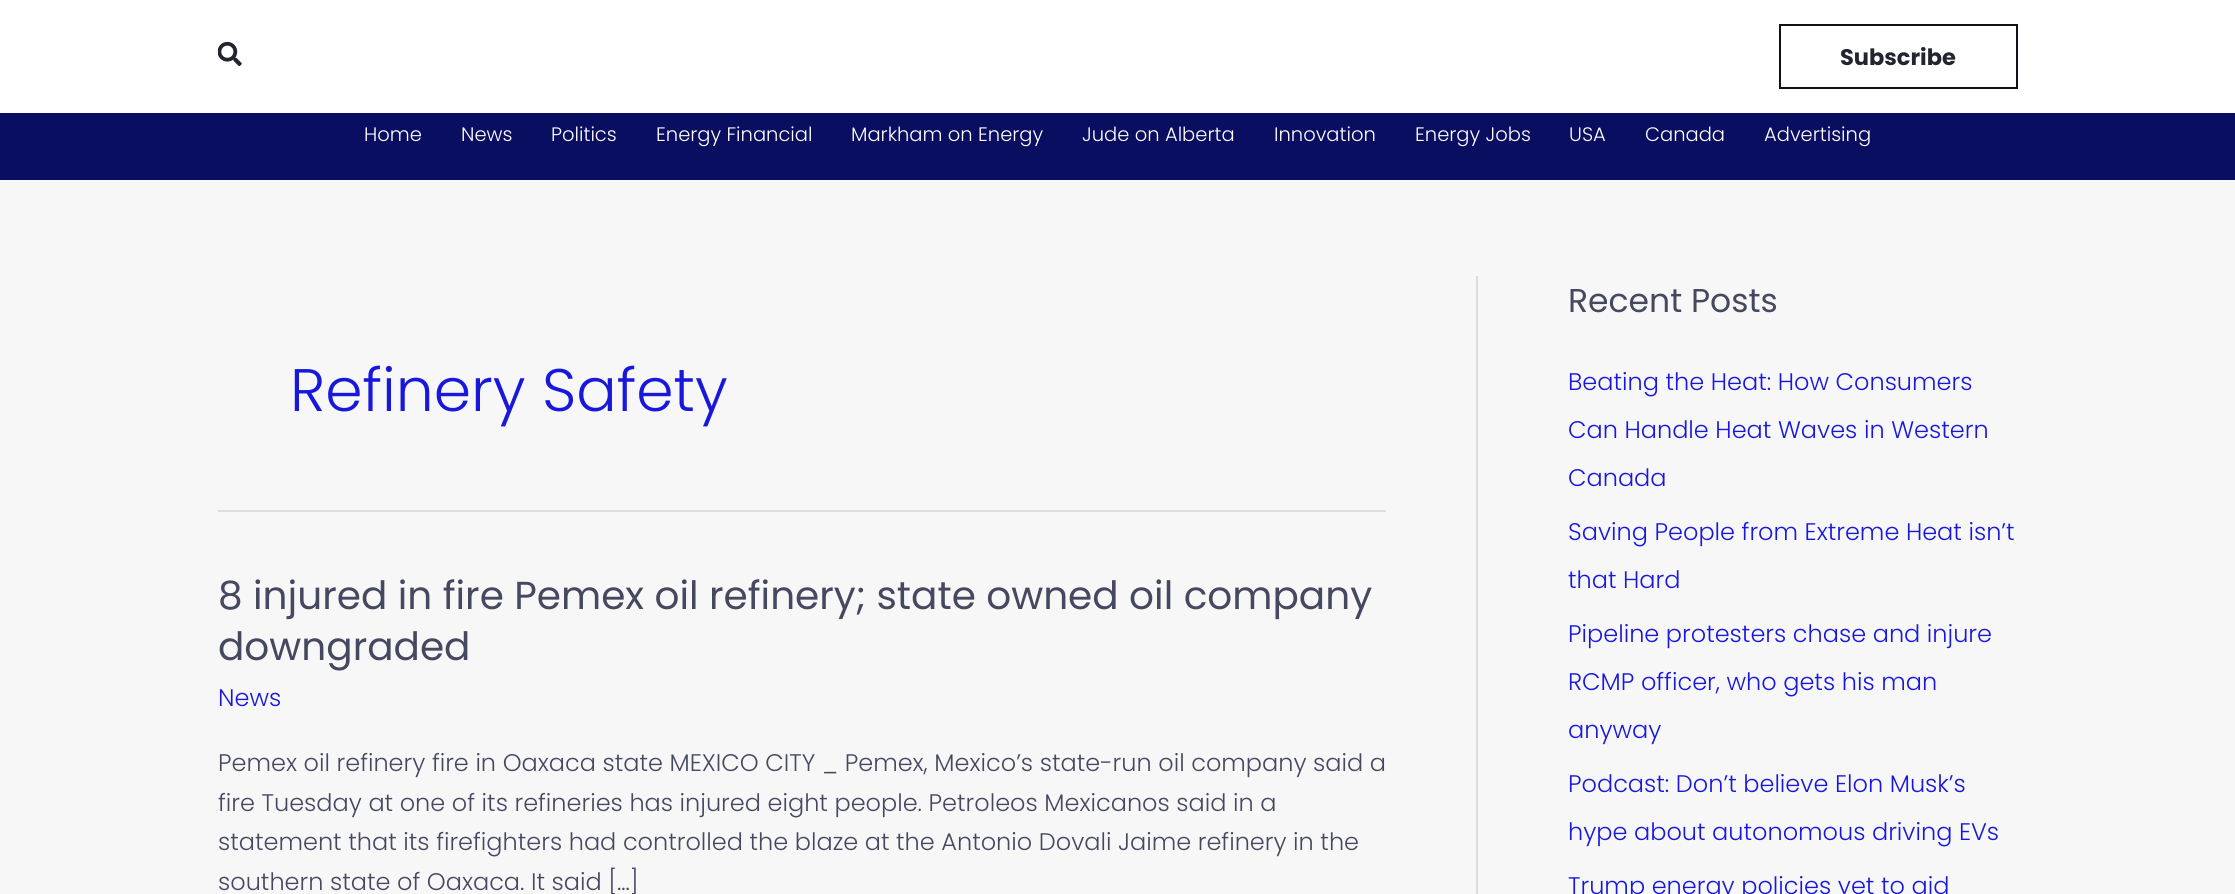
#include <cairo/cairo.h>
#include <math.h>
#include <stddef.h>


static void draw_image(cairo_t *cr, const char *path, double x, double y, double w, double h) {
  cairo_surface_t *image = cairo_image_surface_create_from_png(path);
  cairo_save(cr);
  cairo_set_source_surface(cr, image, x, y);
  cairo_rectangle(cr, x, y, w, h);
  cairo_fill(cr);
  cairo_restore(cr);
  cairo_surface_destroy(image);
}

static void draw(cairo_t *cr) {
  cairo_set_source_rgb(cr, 247 / 255.0, 247 / 255.0, 248 / 255.0);
  cairo_paint(cr);
  cairo_set_source_rgb(cr, 1, 1, 1);
  cairo_rectangle(cr, 0, 0, 2235, 113);
  cairo_fill(cr);
  draw_image(cr, "images/1.png", 218, 41, 24, 26);
  cairo_rectangle(cr, 1780, 25, 237, 63);
  cairo_set_source_rgb(cr, 17 / 255.0, 18 / 255.0, 24 / 255.0);
  cairo_stroke(cr);
  cairo_set_source_rgb(cr, 10 / 255.0, 14 / 255.0, 97 / 255.0);
  cairo_rectangle(cr, 0, 113, 2235, 67);
  cairo_fill(cr);
  cairo_set_source_rgb(cr, 221 / 255.0, 221 / 255.0, 221 / 255.0);
  cairo_rectangle(cr, 1476, 276, 2, 618);
  cairo_fill(cr);
  cairo_rectangle(cr, 218, 510, 1168, 2);
  cairo_fill(cr);
  cairo_select_font_face(cr, "Poppins", CAIRO_FONT_SLANT_NORMAL, CAIRO_FONT_WEIGHT_BOLD);
  cairo_set_font_size(cr, 22.5);
  cairo_set_source_rgb(cr, 34 / 255.0, 36 / 255.0, 47 / 255.0);
  cairo_move_to(cr, 1840, 65);
  cairo_show_text(cr, "Subscribe");
  cairo_select_font_face(cr, "Poppins Light", CAIRO_FONT_SLANT_NORMAL, CAIRO_FONT_WEIGHT_NORMAL);
  cairo_set_font_size(cr, 19.5);
  cairo_set_source_rgb(cr, 1, 1, 1);
  cairo_move_to(cr, 364, 141);
  cairo_show_text(cr, "Home");
  cairo_move_to(cr, 461, 141);
  cairo_show_text(cr, "News");
  cairo_move_to(cr, 551, 141);
  cairo_show_text(cr, "Politics");
  cairo_move_to(cr, 656, 141);
  cairo_show_text(cr, "Energy Financial");
  cairo_move_to(cr, 851, 141);
  cairo_show_text(cr, "Markham on Energy");
  cairo_move_to(cr, 1082, 141);
  cairo_show_text(cr, "Jude on Alberta");
  cairo_move_to(cr, 1274, 141);
  cairo_show_text(cr, "Innovation");
  cairo_move_to(cr, 1415, 141);
  cairo_show_text(cr, "Energy Jobs");
  cairo_move_to(cr, 1569, 141);
  cairo_show_text(cr, "USA");
  cairo_move_to(cr, 1645, 141);
  cairo_show_text(cr, "Canada");
  cairo_move_to(cr, 1764, 141);
  cairo_show_text(cr, "Advertising");
  cairo_set_font_size(cr, 60);
  cairo_set_source_rgb(cr, 24 / 255.0, 24 / 255.0, 220 / 255.0);
  cairo_move_to(cr, 290, 411);
  cairo_show_text(cr, "Refinery Safety");
  cairo_select_font_face(cr, "Poppins", CAIRO_FONT_SLANT_NORMAL, CAIRO_FONT_WEIGHT_NORMAL);
  cairo_set_font_size(cr, 39);
  cairo_set_source_rgb(cr, 69 / 255.0, 72 / 255.0, 95 / 255.0);
  cairo_move_to(cr, 218, 609);
  cairo_show_text(cr, "8 injured in fire Pemex oil refinery; state owned oil company");
  cairo_move_to(cr, 218, 660);
  cairo_show_text(cr, "downgraded");
  cairo_select_font_face(cr, "Poppins Light", CAIRO_FONT_SLANT_NORMAL, CAIRO_FONT_WEIGHT_NORMAL);
  cairo_set_font_size(cr, 24);
  cairo_set_source_rgb(cr, 24 / 255.0, 24 / 255.0, 220 / 255.0);
  cairo_move_to(cr, 218, 706);
  cairo_show_text(cr, "News");
  cairo_set_source_rgb(cr, 69 / 255.0, 72 / 255.0, 95 / 255.0);
  cairo_move_to(cr, 218, 771);
  cairo_show_text(cr, "Pemex oil refinery fire in Oaxaca state MEXICO CITY _ Pemex, Mexico’s state-run oil company said a");
  cairo_move_to(cr, 218, 811);
  cairo_show_text(cr, "fire Tuesday at one of its refineries has injured eight people. Petroleos Mexicanos said in a");
  cairo_move_to(cr, 218, 850);
  cairo_show_text(cr, "statement that its firefighters had controlled the blaze at the Antonio Dovali Jaime refinery in the");
  cairo_move_to(cr, 218, 890);
  cairo_show_text(cr, "southern state of Oaxaca. It said […]");
  cairo_select_font_face(cr, "Poppins", CAIRO_FONT_SLANT_NORMAL, CAIRO_FONT_WEIGHT_NORMAL);
  cairo_set_font_size(cr, 33);
  cairo_move_to(cr, 1568, 312);
  cairo_show_text(cr, "Recent Posts");
  cairo_select_font_face(cr, "Poppins Light", CAIRO_FONT_SLANT_NORMAL, CAIRO_FONT_WEIGHT_NORMAL);
  cairo_set_font_size(cr, 24);
  cairo_set_source_rgb(cr, 24 / 255.0, 24 / 255.0, 220 / 255.0);
  cairo_move_to(cr, 1568, 390);
  cairo_show_text(cr, "Beating the Heat: How Consumers");
  cairo_move_to(cr, 1568, 438);
  cairo_show_text(cr, "Can Handle Heat Waves in Western");
  cairo_move_to(cr, 1568, 486);
  cairo_show_text(cr, "Canada");
  cairo_move_to(cr, 1568, 540);
  cairo_show_text(cr, "Saving People from Extreme Heat isn’t");
  cairo_move_to(cr, 1568, 588);
  cairo_show_text(cr, "that Hard");
  cairo_move_to(cr, 1568, 642);
  cairo_show_text(cr, "Pipeline protesters chase and injure");
  cairo_move_to(cr, 1568, 690);
  cairo_show_text(cr, "RCMP officer, who gets his man");
  cairo_move_to(cr, 1568, 738);
  cairo_show_text(cr, "anyway");
  cairo_move_to(cr, 1568, 792);
  cairo_show_text(cr, "Podcast: Don’t believe Elon Musk’s");
  cairo_move_to(cr, 1568, 840);
  cairo_show_text(cr, "hype about autonomous driving EVs");
  cairo_move_to(cr, 1568, 894);
  cairo_show_text(cr, "Trump energy policies yet to aid");
}

int main(void) {
  cairo_surface_t *surface = cairo_image_surface_create(CAIRO_FORMAT_RGB24, 2235, 894);
  cairo_t *cr = cairo_create(surface);
  cairo_font_options_t *options = cairo_font_options_create();
  cairo_font_options_set_hint_metrics(options, CAIRO_HINT_METRICS_OFF);
  cairo_font_options_set_hint_style(options, CAIRO_HINT_STYLE_NONE);
  cairo_set_font_options(cr, options);
  cairo_set_miter_limit(cr, 4);
  draw(cr);
  cairo_surface_write_to_png(surface, "out.png");
  cairo_font_options_destroy(options);
  cairo_destroy(cr);
  cairo_surface_destroy(surface);
  return 0;
}
